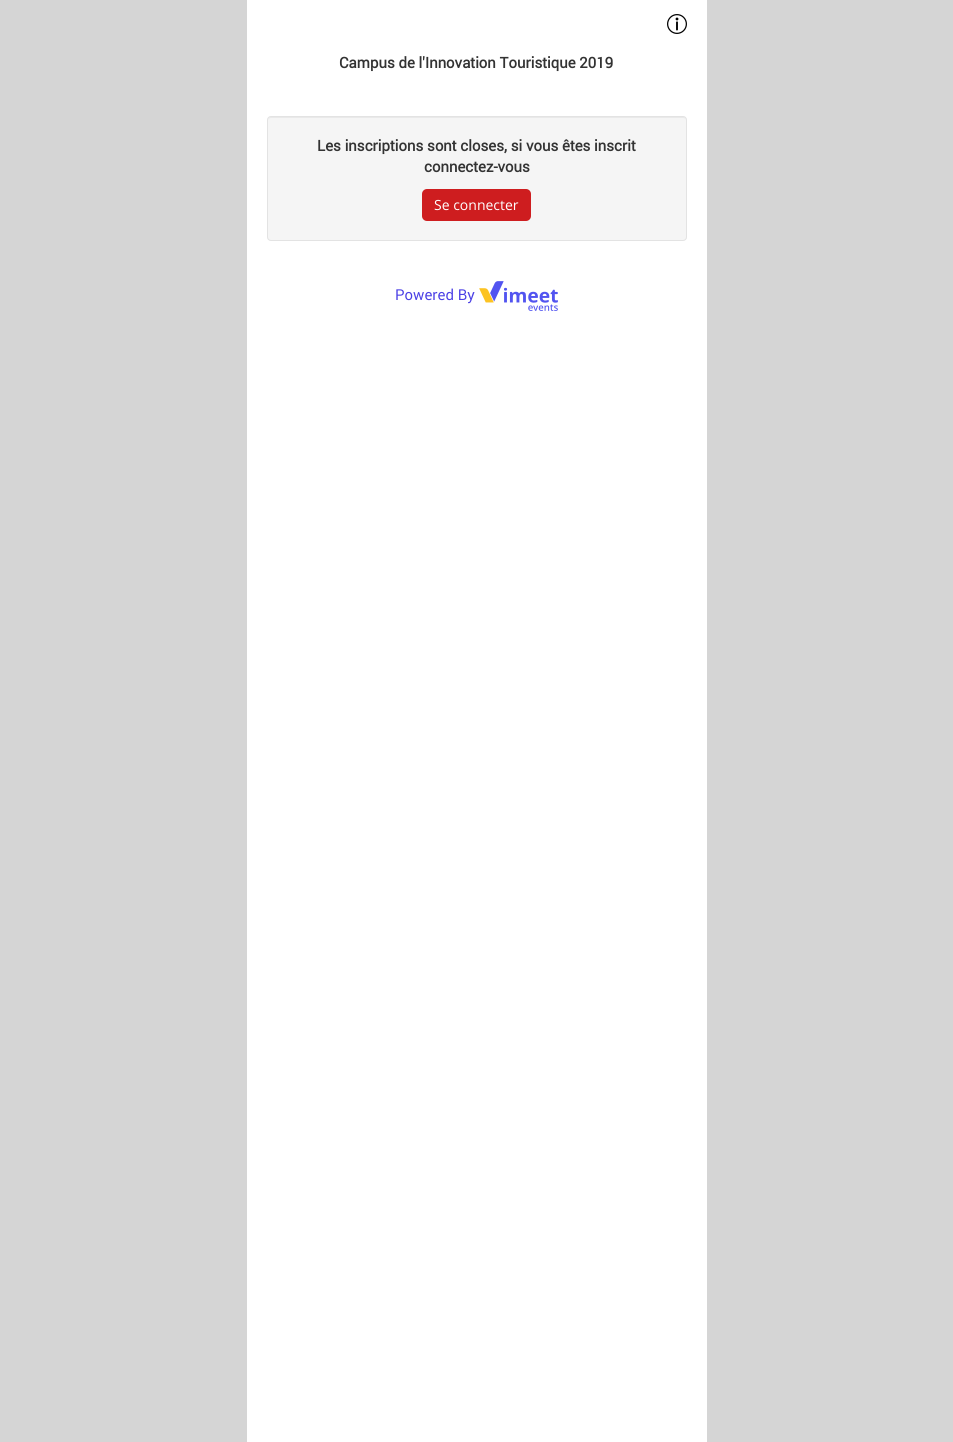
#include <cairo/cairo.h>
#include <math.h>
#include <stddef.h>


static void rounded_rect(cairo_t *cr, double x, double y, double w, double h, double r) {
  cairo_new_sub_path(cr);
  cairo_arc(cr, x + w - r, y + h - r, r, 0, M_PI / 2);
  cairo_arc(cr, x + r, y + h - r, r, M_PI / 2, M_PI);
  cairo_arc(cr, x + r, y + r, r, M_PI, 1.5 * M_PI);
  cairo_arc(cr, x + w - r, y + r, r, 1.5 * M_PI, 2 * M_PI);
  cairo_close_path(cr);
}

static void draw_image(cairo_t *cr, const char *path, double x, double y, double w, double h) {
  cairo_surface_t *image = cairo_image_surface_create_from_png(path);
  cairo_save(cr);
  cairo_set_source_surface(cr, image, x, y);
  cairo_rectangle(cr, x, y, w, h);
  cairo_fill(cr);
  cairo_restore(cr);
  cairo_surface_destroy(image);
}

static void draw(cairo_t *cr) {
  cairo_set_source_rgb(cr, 213 / 255.0, 213 / 255.0, 213 / 255.0);
  cairo_paint(cr);
  cairo_set_source_rgb(cr, 1, 1, 1);
  cairo_rectangle(cr, 247, 0, 460, 1442);
  cairo_fill(cr);
  draw_image(cr, "images/1.png", 667, 14, 20, 20);
  cairo_set_source_rgb(cr, 245 / 255.0, 245 / 255.0, 245 / 255.0);
  rounded_rect(cr, 267, 116, 420, 125, 4);
  cairo_fill(cr);
  cairo_set_source_rgb(cr, 233 / 255.0, 233 / 255.0, 233 / 255.0);
  cairo_new_path(cr);
  cairo_move_to(cr, 271, 118);
  cairo_line_to(cr, 683, 118);
  cairo_curve_to(cr, 685, 118, 686, 119, 686, 121);
  cairo_curve_to(cr, 686, 119, 685, 117, 683, 117);
  cairo_line_to(cr, 271, 117);
  cairo_curve_to(cr, 269, 117, 268, 119, 268, 121);
  cairo_curve_to(cr, 268, 119, 269, 118, 271, 118);
  cairo_close_path(cr);
  cairo_fill(cr);
  rounded_rect(cr, 267.5, 116.5, 419, 124, 3.5);
  cairo_set_source_rgb(cr, 227 / 255.0, 227 / 255.0, 227 / 255.0);
  cairo_set_line_width(cr, 1);
  cairo_stroke(cr);
  cairo_set_source_rgb(cr, 206 / 255.0, 29 / 255.0, 31 / 255.0);
  rounded_rect(cr, 422, 189, 109, 32, 5);
  cairo_fill(cr);
  draw_image(cr, "images/2.png", 479, 281, 79, 30);
  cairo_select_font_face(cr, "Roboto", CAIRO_FONT_SLANT_NORMAL, CAIRO_FONT_WEIGHT_BOLD);
  cairo_set_font_size(cr, 15);
  cairo_set_source_rgb(cr, 51 / 255.0, 51 / 255.0, 51 / 255.0);
  cairo_move_to(cr, 339, 68);
  cairo_show_text(cr, "Campus de l'Innovation Touristique 2019");
  cairo_move_to(cr, 317, 151);
  cairo_show_text(cr, "Les inscriptions sont closes, si vous êtes inscrit");
  cairo_move_to(cr, 424, 172);
  cairo_show_text(cr, "connectez-vous");
  cairo_select_font_face(cr, "Open Sans", CAIRO_FONT_SLANT_NORMAL, CAIRO_FONT_WEIGHT_NORMAL);
  cairo_set_font_size(cr, 14);
  cairo_set_source_rgb(cr, 1, 1, 1);
  cairo_move_to(cr, 434, 210);
  cairo_show_text(cr, "Se connecter");
  cairo_select_font_face(cr, "Roboto", CAIRO_FONT_SLANT_NORMAL, CAIRO_FONT_WEIGHT_NORMAL);
  cairo_set_font_size(cr, 15);
  cairo_set_source_rgb(cr, 74 / 255.0, 63 / 255.0, 229 / 255.0);
  cairo_move_to(cr, 395, 300);
  cairo_show_text(cr, "Powered By");
}

int main(void) {
  cairo_surface_t *surface = cairo_image_surface_create(CAIRO_FORMAT_RGB24, 953, 1442);
  cairo_t *cr = cairo_create(surface);
  cairo_font_options_t *options = cairo_font_options_create();
  cairo_font_options_set_hint_metrics(options, CAIRO_HINT_METRICS_OFF);
  cairo_font_options_set_hint_style(options, CAIRO_HINT_STYLE_NONE);
  cairo_set_font_options(cr, options);
  cairo_set_miter_limit(cr, 4);
  draw(cr);
  cairo_surface_write_to_png(surface, "out.png");
  cairo_font_options_destroy(options);
  cairo_destroy(cr);
  cairo_surface_destroy(surface);
  return 0;
}
